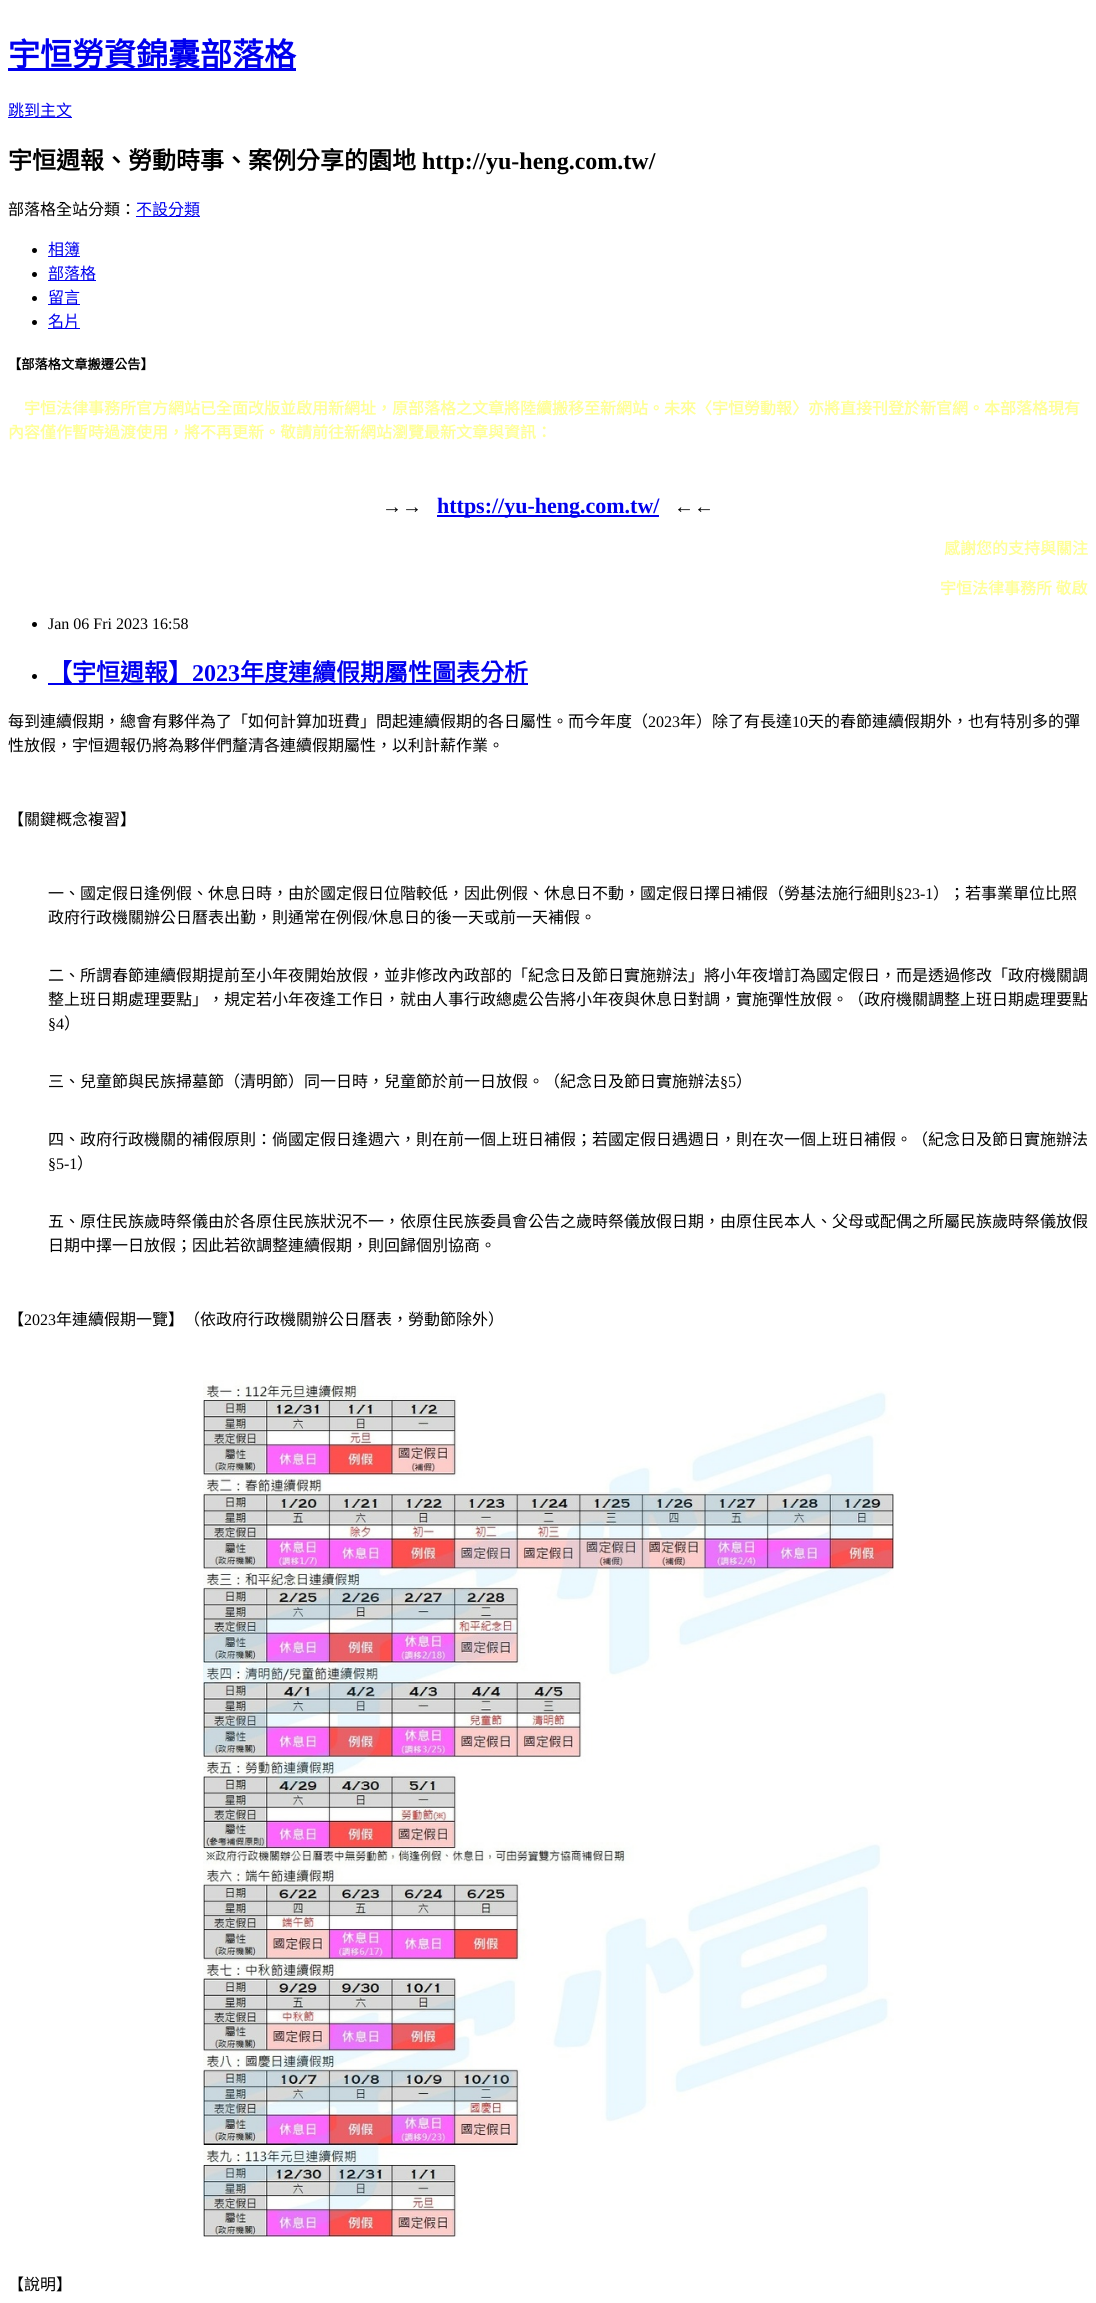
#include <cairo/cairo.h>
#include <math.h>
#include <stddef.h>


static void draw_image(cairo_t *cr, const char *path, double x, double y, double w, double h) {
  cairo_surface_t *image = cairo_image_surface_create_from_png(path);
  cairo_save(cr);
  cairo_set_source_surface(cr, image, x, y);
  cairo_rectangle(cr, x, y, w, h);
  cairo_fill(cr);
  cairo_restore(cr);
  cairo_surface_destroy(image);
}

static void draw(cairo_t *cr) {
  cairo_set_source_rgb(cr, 1, 1, 1);
  cairo_paint(cr);
  cairo_set_source_rgb(cr, 0, 0, 238 / 255.0);
  cairo_rectangle(cr, 8, 68, 288, 3);
  cairo_fill(cr);
  cairo_rectangle(cr, 8, 117, 64, 1);
  cairo_fill(cr);
  cairo_rectangle(cr, 136, 216, 64, 1);
  cairo_fill(cr);
  cairo_set_source_rgb(cr, 0, 0, 0);
  cairo_arc(cr, 34.5, 250.5, 2.5, 0, 2 * M_PI);
  cairo_fill(cr);
  cairo_set_source_rgb(cr, 0, 0, 238 / 255.0);
  cairo_rectangle(cr, 48, 256, 32, 1);
  cairo_fill(cr);
  cairo_set_source_rgb(cr, 0, 0, 0);
  cairo_arc(cr, 34.5, 274.5, 2.5, 0, 2 * M_PI);
  cairo_fill(cr);
  cairo_set_source_rgb(cr, 0, 0, 238 / 255.0);
  cairo_rectangle(cr, 48, 280, 48, 1);
  cairo_fill(cr);
  cairo_set_source_rgb(cr, 0, 0, 0);
  cairo_arc(cr, 34.5, 298.5, 2.5, 0, 2 * M_PI);
  cairo_fill(cr);
  cairo_set_source_rgb(cr, 0, 0, 238 / 255.0);
  cairo_rectangle(cr, 48, 304, 32, 1);
  cairo_fill(cr);
  cairo_set_source_rgb(cr, 0, 0, 0);
  cairo_arc(cr, 34.5, 322.5, 2.5, 0, 2 * M_PI);
  cairo_fill(cr);
  cairo_set_source_rgb(cr, 0, 0, 238 / 255.0);
  cairo_rectangle(cr, 48, 328, 32, 1);
  cairo_fill(cr);
  cairo_rectangle(cr, 437, 515, 222, 2);
  cairo_fill(cr);
  cairo_set_source_rgb(cr, 0, 0, 0);
  cairo_arc(cr, 34.5, 624.5, 2.5, 0, 2 * M_PI);
  cairo_fill(cr);
  cairo_arc(cr, 34.5, 676.5, 2.5, 0, 2 * M_PI);
  cairo_fill(cr);
  cairo_set_source_rgb(cr, 0, 0, 238 / 255.0);
  cairo_rectangle(cr, 48, 683, 480, 2);
  cairo_fill(cr);
  draw_image(cr, "images/1.png", 203, 1380, 691, 857);
  cairo_select_font_face(cr, "Noto Sans CJK TC", CAIRO_FONT_SLANT_NORMAL, CAIRO_FONT_WEIGHT_BOLD);
  cairo_set_font_size(cr, 32);
  cairo_move_to(cr, 8, 66);
  cairo_show_text(cr, "宇恒勞資錦囊部落格");
  cairo_select_font_face(cr, "Noto Sans CJK TC", CAIRO_FONT_SLANT_NORMAL, CAIRO_FONT_WEIGHT_NORMAL);
  cairo_set_font_size(cr, 16);
  cairo_move_to(cr, 8, 116);
  cairo_show_text(cr, "跳到主文");
  cairo_select_font_face(cr, "Noto Sans CJK TC", CAIRO_FONT_SLANT_NORMAL, CAIRO_FONT_WEIGHT_BOLD);
  cairo_set_font_size(cr, 24);
  cairo_set_source_rgb(cr, 0, 0, 0);
  cairo_move_to(cr, 8, 169);
  cairo_show_text(cr, "宇恒週報、勞動時事、案例分享的園地");
  cairo_select_font_face(cr, "Liberation Serif", CAIRO_FONT_SLANT_NORMAL, CAIRO_FONT_WEIGHT_BOLD);
  cairo_move_to(cr, 422, 169);
  cairo_show_text(cr, "http://yu-heng.com.tw/");
  cairo_select_font_face(cr, "Noto Sans CJK TC", CAIRO_FONT_SLANT_NORMAL, CAIRO_FONT_WEIGHT_NORMAL);
  cairo_set_font_size(cr, 16);
  cairo_move_to(cr, 8, 215);
  cairo_show_text(cr, "部落格全站分類：");
  cairo_set_source_rgb(cr, 0, 0, 238 / 255.0);
  cairo_move_to(cr, 136, 215);
  cairo_show_text(cr, "不設分類");
  cairo_move_to(cr, 48, 255);
  cairo_show_text(cr, "相簿");
  cairo_move_to(cr, 48, 279);
  cairo_show_text(cr, "部落格");
  cairo_move_to(cr, 48, 303);
  cairo_show_text(cr, "留言");
  cairo_move_to(cr, 48, 327);
  cairo_show_text(cr, "名片");
  cairo_select_font_face(cr, "Noto Sans CJK TC", CAIRO_FONT_SLANT_NORMAL, CAIRO_FONT_WEIGHT_BOLD);
  cairo_set_font_size(cr, 13.25);
  cairo_set_source_rgb(cr, 0, 0, 0);
  cairo_move_to(cr, 8, 369);
  cairo_show_text(cr, "【部落格文章搬遷公告】");
  cairo_set_font_size(cr, 16);
  cairo_set_source_rgb(cr, 1, 1, 153 / 255.0);
  cairo_move_to(cr, 24, 414);
  cairo_show_text(cr, "宇恒法律事務所官方網站已全面改版並啟用新網址，原部落格之文章將陸續搬移至新網站。未來〈宇恒勞動報〉亦將直接刊登於新官網。本部落格現有");
  cairo_move_to(cr, 8, 438);
  cairo_show_text(cr, "內容僅作暫時過渡使用，將不再更新。敬請前往新網站瀏覽最新文章與資訊：");
  cairo_select_font_face(cr, "Liberation Serif", CAIRO_FONT_SLANT_NORMAL, CAIRO_FONT_WEIGHT_BOLD);
  cairo_set_font_size(cr, 20);
  cairo_set_source_rgb(cr, 0, 0, 0);
  cairo_move_to(cr, 382, 513);
  cairo_show_text(cr, "→→");
  cairo_set_font_size(cr, 22);
  cairo_set_source_rgb(cr, 0, 0, 238 / 255.0);
  cairo_move_to(cr, 437, 513);
  cairo_show_text(cr, "https://yu-heng.com.tw/");
  cairo_set_font_size(cr, 20);
  cairo_set_source_rgb(cr, 0, 0, 0);
  cairo_move_to(cr, 674, 513);
  cairo_show_text(cr, "←←");
  cairo_select_font_face(cr, "Noto Sans CJK TC", CAIRO_FONT_SLANT_NORMAL, CAIRO_FONT_WEIGHT_BOLD);
  cairo_set_font_size(cr, 16);
  cairo_set_source_rgb(cr, 1, 1, 153 / 255.0);
  cairo_move_to(cr, 944, 554);
  cairo_show_text(cr, "感謝您的支持與關注");
  cairo_move_to(cr, 940, 594);
  cairo_show_text(cr, "宇恒法律事務所 敬啟");
  cairo_select_font_face(cr, "Liberation Serif", CAIRO_FONT_SLANT_NORMAL, CAIRO_FONT_WEIGHT_NORMAL);
  cairo_set_source_rgb(cr, 0, 0, 0);
  cairo_move_to(cr, 48, 629);
  cairo_show_text(cr, "Jan 06 Fri 2023 16:58");
  cairo_select_font_face(cr, "Noto Sans CJK TC", CAIRO_FONT_SLANT_NORMAL, CAIRO_FONT_WEIGHT_BOLD);
  cairo_set_font_size(cr, 24);
  cairo_set_source_rgb(cr, 0, 0, 238 / 255.0);
  cairo_move_to(cr, 48, 681);
  cairo_show_text(cr, "【宇恒週報】");
  cairo_select_font_face(cr, "Liberation Serif", CAIRO_FONT_SLANT_NORMAL, CAIRO_FONT_WEIGHT_BOLD);
  cairo_move_to(cr, 192, 681);
  cairo_show_text(cr, "2023");
  cairo_select_font_face(cr, "Noto Sans CJK TC", CAIRO_FONT_SLANT_NORMAL, CAIRO_FONT_WEIGHT_BOLD);
  cairo_move_to(cr, 240, 681);
  cairo_show_text(cr, "年度連續假期屬性圖表分析");
  cairo_select_font_face(cr, "Noto Sans CJK TC", CAIRO_FONT_SLANT_NORMAL, CAIRO_FONT_WEIGHT_NORMAL);
  cairo_set_font_size(cr, 16);
  cairo_set_source_rgb(cr, 0, 0, 0);
  cairo_move_to(cr, 8, 727);
  cairo_show_text(cr, "每到連續假期，總會有夥伴為了「如何計算加班費」問起連續假期的各日屬性。而今年度（");
  cairo_select_font_face(cr, "Liberation Serif", CAIRO_FONT_SLANT_NORMAL, CAIRO_FONT_WEIGHT_NORMAL);
  cairo_move_to(cr, 648, 727);
  cairo_show_text(cr, "2023");
  cairo_select_font_face(cr, "Noto Sans CJK TC", CAIRO_FONT_SLANT_NORMAL, CAIRO_FONT_WEIGHT_NORMAL);
  cairo_move_to(cr, 680, 727);
  cairo_show_text(cr, "年）除了有長達");
  cairo_select_font_face(cr, "Liberation Serif", CAIRO_FONT_SLANT_NORMAL, CAIRO_FONT_WEIGHT_NORMAL);
  cairo_move_to(cr, 792, 727);
  cairo_show_text(cr, "10");
  cairo_select_font_face(cr, "Noto Sans CJK TC", CAIRO_FONT_SLANT_NORMAL, CAIRO_FONT_WEIGHT_NORMAL);
  cairo_move_to(cr, 808, 727);
  cairo_show_text(cr, "天的春節連續假期外，也有特別多的彈");
  cairo_move_to(cr, 8, 751);
  cairo_show_text(cr, "性放假，宇恒週報仍將為夥伴們釐清各連續假期屬性，以利計薪作業。");
  cairo_move_to(cr, 8, 825);
  cairo_show_text(cr, "【關鍵概念複習】");
  cairo_move_to(cr, 48, 899);
  cairo_show_text(cr, "一、國定假日逢例假、休息日時，由於國定假日位階較低，因此例假、休息日不動，國定假日擇日補假（勞基法施行細則");
  cairo_select_font_face(cr, "Liberation Serif", CAIRO_FONT_SLANT_NORMAL, CAIRO_FONT_WEIGHT_NORMAL);
  cairo_move_to(cr, 896, 899);
  cairo_show_text(cr, "§23-1");
  cairo_select_font_face(cr, "Noto Sans CJK TC", CAIRO_FONT_SLANT_NORMAL, CAIRO_FONT_WEIGHT_NORMAL);
  cairo_move_to(cr, 933, 899);
  cairo_show_text(cr, "）；若事業單位比照");
  cairo_move_to(cr, 48, 923);
  cairo_show_text(cr, "政府行政機關辦公日曆表出勤，則通常在例假");
  cairo_select_font_face(cr, "Liberation Serif", CAIRO_FONT_SLANT_NORMAL, CAIRO_FONT_WEIGHT_NORMAL);
  cairo_move_to(cr, 368, 923);
  cairo_show_text(cr, "/");
  cairo_select_font_face(cr, "Noto Sans CJK TC", CAIRO_FONT_SLANT_NORMAL, CAIRO_FONT_WEIGHT_NORMAL);
  cairo_move_to(cr, 372, 923);
  cairo_show_text(cr, "休息日的後一天或前一天補假。");
  cairo_move_to(cr, 48, 981);
  cairo_show_text(cr, "二、所謂春節連續假期提前至小年夜開始放假，並非修改內政部的「紀念日及節日實施辦法」將小年夜增訂為國定假日，而是透過修改「政府機關調");
  cairo_move_to(cr, 48, 1005);
  cairo_show_text(cr, "整上班日期處理要點」，規定若小年夜逢工作日，就由人事行政總處公告將小年夜與休息日對調，實施彈性放假。（政府機關調整上班日期處理要點");
  cairo_select_font_face(cr, "Liberation Serif", CAIRO_FONT_SLANT_NORMAL, CAIRO_FONT_WEIGHT_NORMAL);
  cairo_move_to(cr, 48, 1029);
  cairo_show_text(cr, "§4");
  cairo_select_font_face(cr, "Noto Sans CJK TC", CAIRO_FONT_SLANT_NORMAL, CAIRO_FONT_WEIGHT_NORMAL);
  cairo_move_to(cr, 64, 1029);
  cairo_show_text(cr, "）");
  cairo_move_to(cr, 48, 1087);
  cairo_show_text(cr, "三、兒童節與民族掃墓節（清明節）同一日時，兒童節於前一日放假。（紀念日及節日實施辦法");
  cairo_select_font_face(cr, "Liberation Serif", CAIRO_FONT_SLANT_NORMAL, CAIRO_FONT_WEIGHT_NORMAL);
  cairo_move_to(cr, 720, 1087);
  cairo_show_text(cr, "§5");
  cairo_select_font_face(cr, "Noto Sans CJK TC", CAIRO_FONT_SLANT_NORMAL, CAIRO_FONT_WEIGHT_NORMAL);
  cairo_move_to(cr, 736, 1087);
  cairo_show_text(cr, "）");
  cairo_move_to(cr, 48, 1145);
  cairo_show_text(cr, "四、政府行政機關的補假原則：倘國定假日逢週六，則在前一個上班日補假；若國定假日遇週日，則在次一個上班日補假。（紀念日及節日實施辦法");
  cairo_select_font_face(cr, "Liberation Serif", CAIRO_FONT_SLANT_NORMAL, CAIRO_FONT_WEIGHT_NORMAL);
  cairo_move_to(cr, 48, 1169);
  cairo_show_text(cr, "§5-1");
  cairo_select_font_face(cr, "Noto Sans CJK TC", CAIRO_FONT_SLANT_NORMAL, CAIRO_FONT_WEIGHT_NORMAL);
  cairo_move_to(cr, 77, 1169);
  cairo_show_text(cr, "）");
  cairo_move_to(cr, 48, 1227);
  cairo_show_text(cr, "五、原住民族歲時祭儀由於各原住民族狀況不一，依原住民族委員會公告之歲時祭儀放假日期，由原住民本人、父母或配偶之所屬民族歲時祭儀放假");
  cairo_move_to(cr, 48, 1251);
  cairo_show_text(cr, "日期中擇一日放假；因此若欲調整連續假期，則回歸個別協商。");
  cairo_move_to(cr, 8, 1325);
  cairo_show_text(cr, "【");
  cairo_select_font_face(cr, "Liberation Serif", CAIRO_FONT_SLANT_NORMAL, CAIRO_FONT_WEIGHT_NORMAL);
  cairo_move_to(cr, 24, 1325);
  cairo_show_text(cr, "2023");
  cairo_select_font_face(cr, "Noto Sans CJK TC", CAIRO_FONT_SLANT_NORMAL, CAIRO_FONT_WEIGHT_NORMAL);
  cairo_move_to(cr, 56, 1325);
  cairo_show_text(cr, "年連續假期一覽】（依政府行政機關辦公日曆表，勞動節除外）");
  cairo_move_to(cr, 8, 2290);
  cairo_show_text(cr, "【說明】");
}

int main(void) {
  cairo_surface_t *surface = cairo_image_surface_create(CAIRO_FORMAT_RGB24, 1096, 2303);
  cairo_t *cr = cairo_create(surface);
  cairo_font_options_t *options = cairo_font_options_create();
  cairo_font_options_set_hint_metrics(options, CAIRO_HINT_METRICS_OFF);
  cairo_font_options_set_hint_style(options, CAIRO_HINT_STYLE_NONE);
  cairo_set_font_options(cr, options);
  cairo_set_miter_limit(cr, 4);
  draw(cr);
  cairo_surface_write_to_png(surface, "out.png");
  cairo_font_options_destroy(options);
  cairo_destroy(cr);
  cairo_surface_destroy(surface);
  return 0;
}
